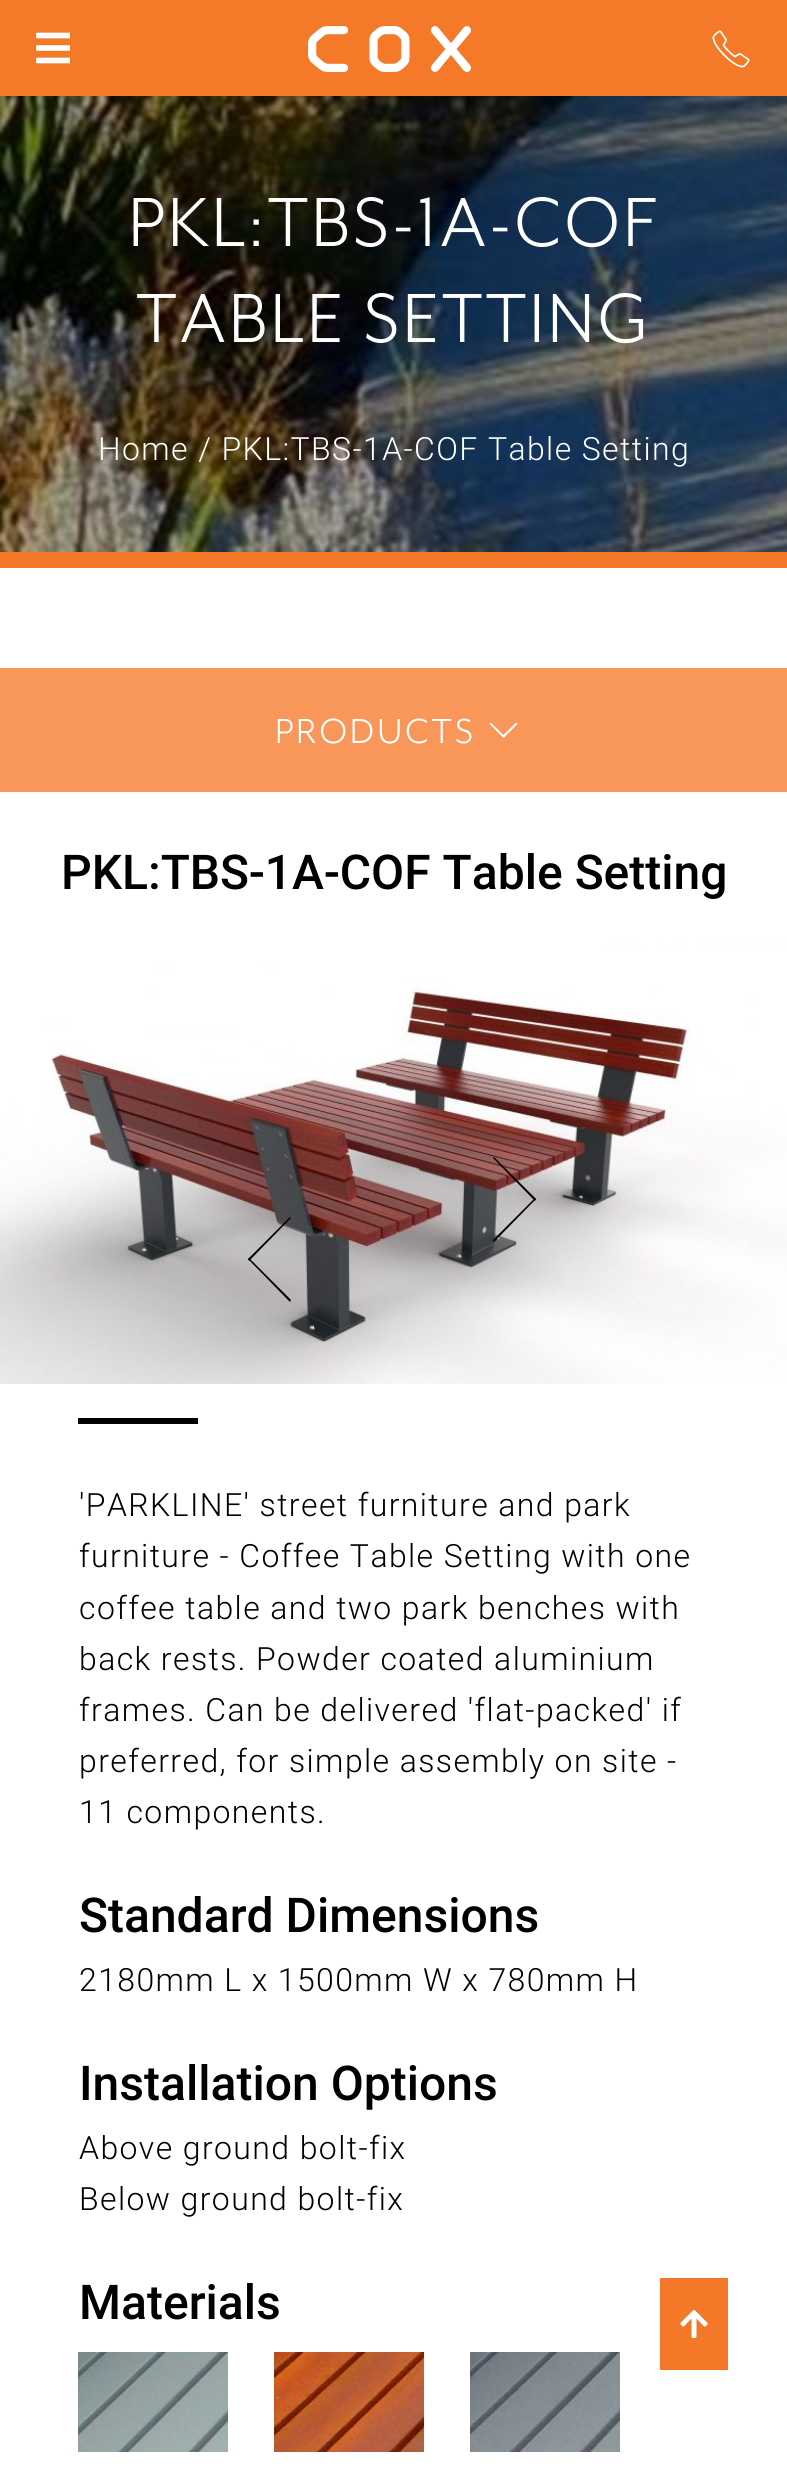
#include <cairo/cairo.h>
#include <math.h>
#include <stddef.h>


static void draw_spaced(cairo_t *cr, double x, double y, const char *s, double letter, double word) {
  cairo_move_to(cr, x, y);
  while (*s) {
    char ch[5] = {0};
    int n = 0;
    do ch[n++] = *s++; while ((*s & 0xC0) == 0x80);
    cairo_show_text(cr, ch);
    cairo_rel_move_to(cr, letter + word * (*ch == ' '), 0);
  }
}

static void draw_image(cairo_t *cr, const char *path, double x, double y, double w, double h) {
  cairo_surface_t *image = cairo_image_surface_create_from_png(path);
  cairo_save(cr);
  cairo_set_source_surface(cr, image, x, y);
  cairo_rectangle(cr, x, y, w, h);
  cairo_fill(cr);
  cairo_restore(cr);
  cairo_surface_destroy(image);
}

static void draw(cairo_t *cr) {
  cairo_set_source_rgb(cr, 1, 1, 1);
  cairo_paint(cr);
  cairo_set_source_rgb(cr, 244 / 255.0, 121 / 255.0, 41 / 255.0);
  cairo_rectangle(cr, 0, 0, 787, 96);
  cairo_fill(cr);
  draw_image(cr, "images/1.png", 36, 32, 34, 32);
  draw_image(cr, "images/2.png", 308, 26, 163, 46);
  draw_image(cr, "images/3.png", 712, 30, 38, 38);
  draw_image(cr, "images/4.png", 0, 96, 787, 456);
  cairo_set_source_rgb(cr, 243 / 255.0, 121 / 255.0, 40 / 255.0);
  cairo_rectangle(cr, 0, 552, 787, 16);
  cairo_fill(cr);
  cairo_set_source_rgb(cr, 249 / 255.0, 151 / 255.0, 90 / 255.0);
  cairo_rectangle(cr, 0, 668, 787, 124);
  cairo_fill(cr);
  cairo_set_source_rgb(cr, 1, 1, 1);
  cairo_new_path(cr);
  cairo_move_to(cr, 517.5, 724);
  cairo_line_to(cr, 503.5, 738);
  cairo_line_to(cr, 502, 736.5);
  cairo_line_to(cr, 516, 722.5);
  cairo_close_path(cr);
  cairo_fill(cr);
  cairo_new_path(cr);
  cairo_move_to(cr, 505, 736.5);
  cairo_line_to(cr, 503.5, 738);
  cairo_line_to(cr, 489.5, 724);
  cairo_line_to(cr, 490.5, 722.5);
  cairo_close_path(cr);
  cairo_fill(cr);
  draw_image(cr, "images/5.png", 0, 942, 787, 442);
  cairo_set_source_rgb(cr, 0, 0, 0);
  cairo_new_path(cr);
  cairo_move_to(cr, 494, 1157);
  cairo_line_to(cr, 536, 1199);
  cairo_line_to(cr, 535, 1201);
  cairo_line_to(cr, 493, 1158);
  cairo_close_path(cr);
  cairo_fill(cr);
  cairo_new_path(cr);
  cairo_move_to(cr, 535, 1198);
  cairo_line_to(cr, 536, 1199);
  cairo_line_to(cr, 494, 1242);
  cairo_line_to(cr, 493, 1240);
  cairo_close_path(cr);
  cairo_fill(cr);
  cairo_new_path(cr);
  cairo_move_to(cr, 290, 1302);
  cairo_line_to(cr, 248, 1259);
  cairo_line_to(cr, 249, 1258);
  cairo_line_to(cr, 291, 1300);
  cairo_close_path(cr);
  cairo_fill(cr);
  cairo_new_path(cr);
  cairo_move_to(cr, 249, 1261);
  cairo_line_to(cr, 248, 1259);
  cairo_line_to(cr, 290, 1217);
  cairo_line_to(cr, 291, 1218);
  cairo_close_path(cr);
  cairo_fill(cr);
  cairo_rectangle(cr, 78, 1418, 120, 6);
  cairo_fill(cr);
  draw_image(cr, "images/6.png", 78, 2352, 150, 100);
  draw_image(cr, "images/7.png", 274, 2352, 150, 100);
  draw_image(cr, "images/8.png", 470, 2352, 150, 100);
  cairo_set_source_rgb(cr, 243 / 255.0, 121 / 255.0, 40 / 255.0);
  cairo_rectangle(cr, 660, 2278, 68, 92);
  cairo_fill(cr);
  draw_image(cr, "images/9.png", 680, 2310, 28, 28);
  cairo_select_font_face(cr, "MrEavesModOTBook", CAIRO_FONT_SLANT_NORMAL, CAIRO_FONT_WEIGHT_NORMAL);
  cairo_set_font_size(cr, 80);
  cairo_set_source_rgb(cr, 1, 1, 1);
  draw_spaced(cr, 128, 246, "PKL:TBS-1A-COF", 2.75, 0);
  draw_spaced(cr, 136, 342, "TABLE SETTING", 2.75, 0);
  cairo_select_font_face(cr, "Roboto Light", CAIRO_FONT_SLANT_NORMAL, CAIRO_FONT_WEIGHT_NORMAL);
  cairo_set_font_size(cr, 32);
  draw_spaced(cr, 98, 460, "Home / PKL:TBS-1A-COF Table Setting", 1.4, 0);
  cairo_select_font_face(cr, "MrEavesModOTBook", CAIRO_FONT_SLANT_NORMAL, CAIRO_FONT_WEIGHT_NORMAL);
  cairo_set_font_size(cr, 40);
  draw_spaced(cr, 275, 743, "PRODUCTS", 2.75, 0);
  cairo_select_font_face(cr, "Roboto Medium", CAIRO_FONT_SLANT_NORMAL, CAIRO_FONT_WEIGHT_NORMAL);
  cairo_set_font_size(cr, 48);
  cairo_set_source_rgb(cr, 0, 0, 0);
  cairo_move_to(cr, 61, 889);
  cairo_show_text(cr, "PKL:TBS-1A-COF Table Setting");
  cairo_select_font_face(cr, "Roboto Light", CAIRO_FONT_SLANT_NORMAL, CAIRO_FONT_WEIGHT_NORMAL);
  cairo_set_font_size(cr, 32);
  draw_spaced(cr, 79, 1516, "'PARKLINE' street furniture and park", 1.4, 0);
  draw_spaced(cr, 79, 1567, "furniture - Coffee Table Setting with one", 1.4, 0);
  draw_spaced(cr, 79, 1619, "coffee table and two park benches with", 1.4, 0);
  draw_spaced(cr, 79, 1670, "back rests. Powder coated aluminium", 1.4, 0);
  draw_spaced(cr, 79, 1721, "frames. Can be delivered 'flat-packed' if", 1.4, 0);
  draw_spaced(cr, 79, 1772, "preferred, for simple assembly on site -", 1.4, 0);
  draw_spaced(cr, 79, 1823, "11 components.", 1.4, 0);
  cairo_select_font_face(cr, "Roboto Medium", CAIRO_FONT_SLANT_NORMAL, CAIRO_FONT_WEIGHT_NORMAL);
  cairo_set_font_size(cr, 48);
  cairo_move_to(cr, 79, 1932);
  cairo_show_text(cr, "Standard Dimensions");
  cairo_select_font_face(cr, "Roboto Light", CAIRO_FONT_SLANT_NORMAL, CAIRO_FONT_WEIGHT_NORMAL);
  cairo_set_font_size(cr, 32);
  draw_spaced(cr, 79, 1991, "2180mm L x 1500mm W x 780mm H", 1.4, 0);
  cairo_select_font_face(cr, "Roboto Medium", CAIRO_FONT_SLANT_NORMAL, CAIRO_FONT_WEIGHT_NORMAL);
  cairo_set_font_size(cr, 48);
  cairo_move_to(cr, 79, 2100);
  cairo_show_text(cr, "Installation Options");
  cairo_select_font_face(cr, "Roboto Light", CAIRO_FONT_SLANT_NORMAL, CAIRO_FONT_WEIGHT_NORMAL);
  cairo_set_font_size(cr, 32);
  draw_spaced(cr, 79, 2159, "Above ground bolt-fix", 1.4, 0);
  draw_spaced(cr, 79, 2210, "Below ground bolt-fix", 1.4, 0);
  cairo_select_font_face(cr, "Roboto Medium", CAIRO_FONT_SLANT_NORMAL, CAIRO_FONT_WEIGHT_NORMAL);
  cairo_set_font_size(cr, 48);
  cairo_move_to(cr, 79, 2319);
  cairo_show_text(cr, "Materials");
}

int main(void) {
  cairo_surface_t *surface = cairo_image_surface_create(CAIRO_FORMAT_RGB24, 787, 2470);
  cairo_t *cr = cairo_create(surface);
  cairo_font_options_t *options = cairo_font_options_create();
  cairo_font_options_set_hint_metrics(options, CAIRO_HINT_METRICS_OFF);
  cairo_font_options_set_hint_style(options, CAIRO_HINT_STYLE_NONE);
  cairo_set_font_options(cr, options);
  cairo_set_miter_limit(cr, 4);
  draw(cr);
  cairo_surface_write_to_png(surface, "out.png");
  cairo_font_options_destroy(options);
  cairo_destroy(cr);
  cairo_surface_destroy(surface);
  return 0;
}
